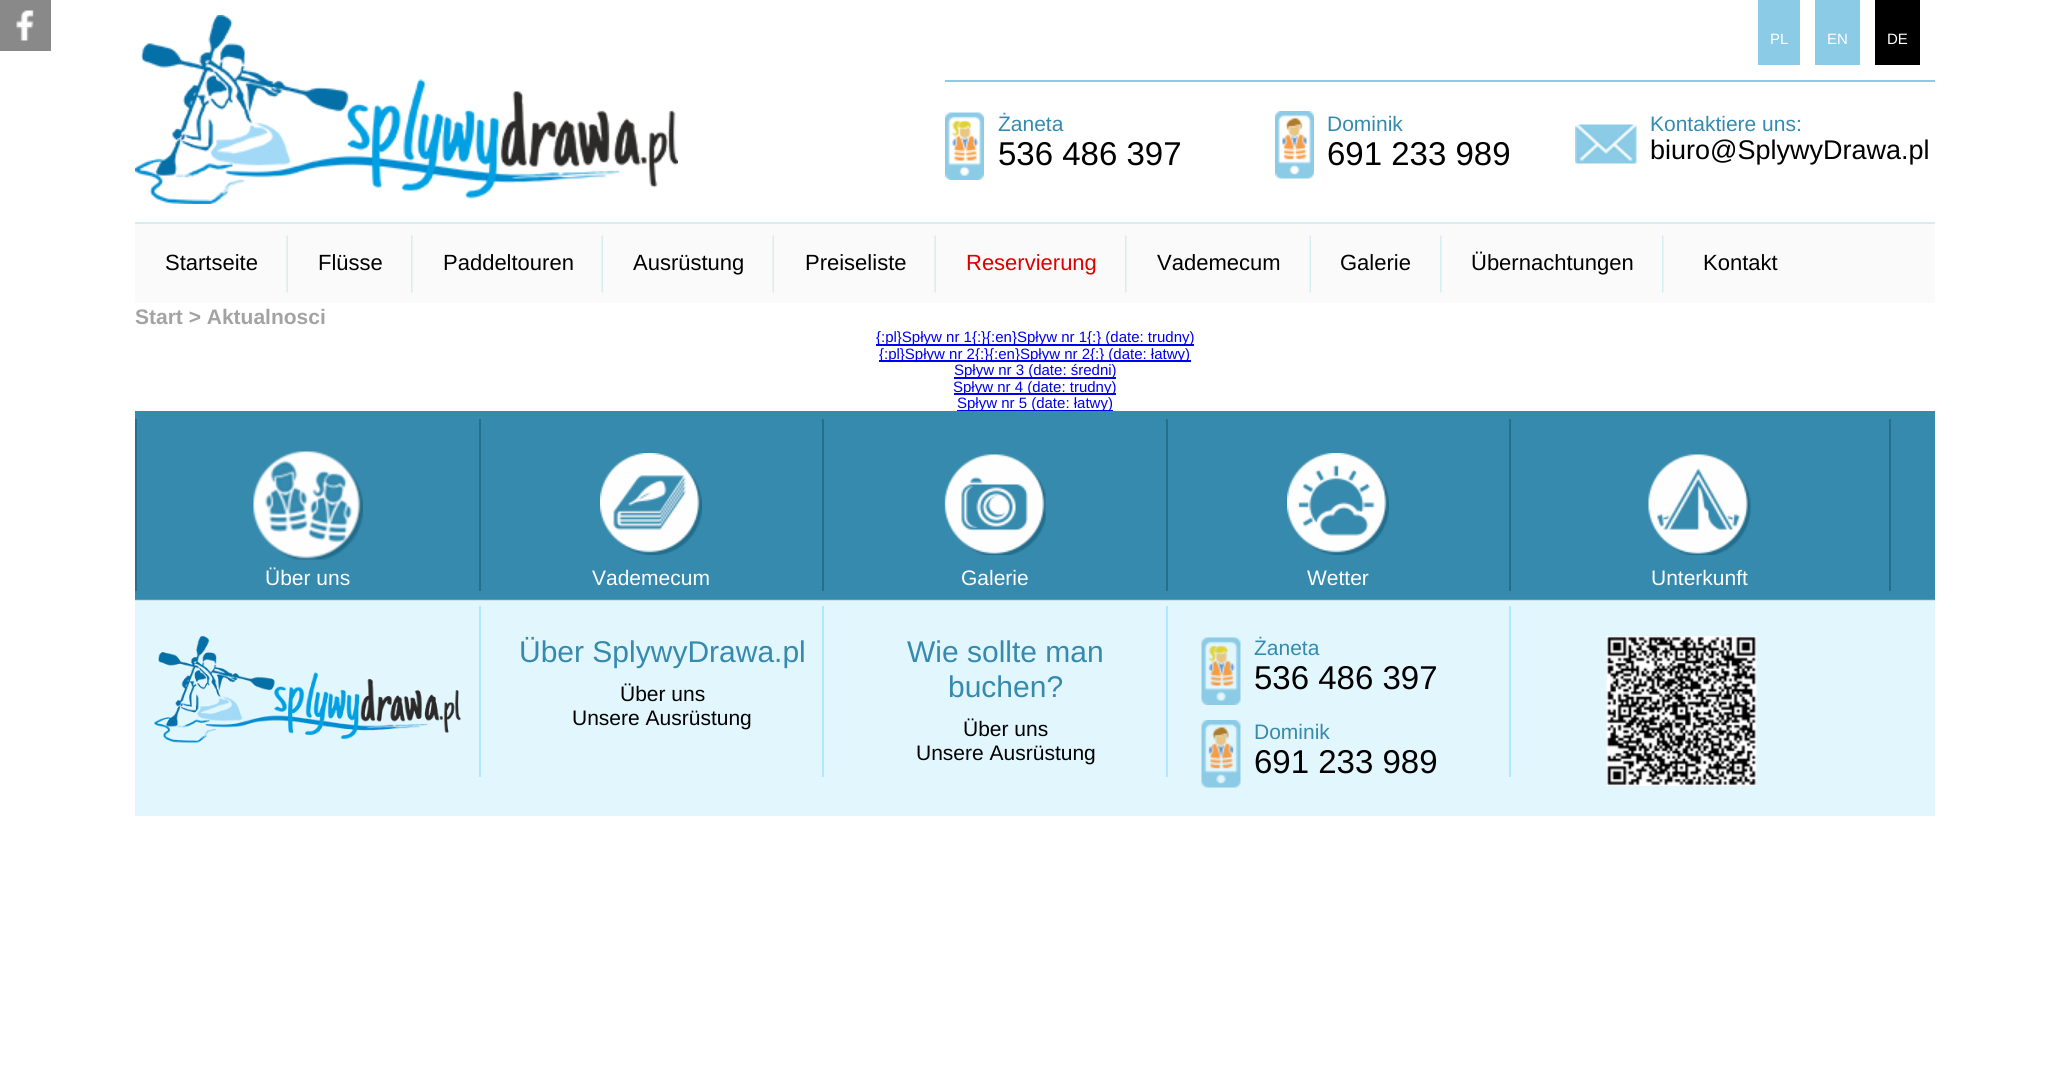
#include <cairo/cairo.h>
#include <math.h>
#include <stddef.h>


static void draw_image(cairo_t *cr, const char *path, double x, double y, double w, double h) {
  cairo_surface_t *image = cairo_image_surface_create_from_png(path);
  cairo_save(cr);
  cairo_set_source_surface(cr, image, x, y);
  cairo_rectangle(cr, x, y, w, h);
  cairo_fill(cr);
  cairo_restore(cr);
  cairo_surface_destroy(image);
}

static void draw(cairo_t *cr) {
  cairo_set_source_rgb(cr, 1, 1, 1);
  cairo_paint(cr);
  draw_image(cr, "images/1.png", 0, 0, 51, 51);
  draw_image(cr, "images/2.png", 135, 15, 543, 189);
  cairo_set_source_rgb(cr, 139 / 255.0, 203 / 255.0, 230 / 255.0);
  cairo_rectangle(cr, 945, 80, 990, 2);
  cairo_fill(cr);
  cairo_rectangle(cr, 1758, 0, 42, 65);
  cairo_fill(cr);
  cairo_rectangle(cr, 1815, 0, 45, 65);
  cairo_fill(cr);
  cairo_set_source_rgb(cr, 0, 0, 0);
  cairo_rectangle(cr, 1875, 0, 45, 65);
  cairo_fill(cr);
  draw_image(cr, "images/3.png", 945, 112, 39, 68);
  draw_image(cr, "images/4.png", 1275, 111, 39, 68);
  draw_image(cr, "images/5.png", 1575, 124, 62, 40);
  cairo_set_source_rgb(cr, 250 / 255.0, 250 / 255.0, 250 / 255.0);
  cairo_rectangle(cr, 135, 224, 1800, 79);
  cairo_fill(cr);
  cairo_set_source_rgb(cr, 215 / 255.0, 236 / 255.0, 238 / 255.0);
  cairo_rectangle(cr, 135, 222, 1800, 2);
  cairo_fill(cr);
  draw_image(cr, "images/6.png", 286, 235, 2, 58);
  draw_image(cr, "images/7.png", 411, 235, 2, 58);
  draw_image(cr, "images/6.png", 601, 235, 2, 58);
  draw_image(cr, "images/6.png", 772, 235, 2, 58);
  draw_image(cr, "images/6.png", 934, 235, 2, 58);
  draw_image(cr, "images/7.png", 1125, 235, 2, 58);
  draw_image(cr, "images/6.png", 1309, 235, 2, 58);
  draw_image(cr, "images/7.png", 1440, 235, 2, 58);
  draw_image(cr, "images/7.png", 1662, 235, 2, 58);
  cairo_set_source_rgb(cr, 0, 0, 238 / 255.0);
  cairo_rectangle(cr, 876, 344, 318, 2);
  cairo_fill(cr);
  cairo_rectangle(cr, 879, 360, 312, 2);
  cairo_fill(cr);
  cairo_rectangle(cr, 954, 377, 162, 2);
  cairo_fill(cr);
  cairo_rectangle(cr, 954, 393, 162, 2);
  cairo_fill(cr);
  cairo_rectangle(cr, 957, 410, 156, 1);
  cairo_fill(cr);
  cairo_select_font_face(cr, "Liberation Sans", CAIRO_FONT_SLANT_NORMAL, CAIRO_FONT_WEIGHT_NORMAL);
  cairo_set_font_size(cr, 15);
  cairo_set_source_rgb(cr, 1, 1, 1);
  cairo_move_to(cr, 1770, 44);
  cairo_show_text(cr, "PL");
  cairo_move_to(cr, 1827, 44);
  cairo_show_text(cr, "EN");
  cairo_move_to(cr, 1887, 44);
  cairo_show_text(cr, "DE");
  cairo_set_font_size(cr, 21);
  cairo_set_source_rgb(cr, 54 / 255.0, 138 / 255.0, 174 / 255.0);
  cairo_move_to(cr, 998, 131);
  cairo_show_text(cr, "Żaneta");
  cairo_set_font_size(cr, 33);
  cairo_set_source_rgb(cr, 0, 0, 0);
  cairo_move_to(cr, 998, 165);
  cairo_show_text(cr, "536 486 397");
  cairo_set_font_size(cr, 21);
  cairo_set_source_rgb(cr, 54 / 255.0, 138 / 255.0, 174 / 255.0);
  cairo_move_to(cr, 1327, 131);
  cairo_show_text(cr, "Dominik");
  cairo_set_font_size(cr, 33);
  cairo_set_source_rgb(cr, 0, 0, 0);
  cairo_move_to(cr, 1327, 165);
  cairo_show_text(cr, "691 233 989");
  cairo_set_font_size(cr, 21);
  cairo_set_source_rgb(cr, 54 / 255.0, 138 / 255.0, 174 / 255.0);
  cairo_move_to(cr, 1650, 131);
  cairo_show_text(cr, "Kontaktiere uns:");
  cairo_set_font_size(cr, 27);
  cairo_set_source_rgb(cr, 0, 0, 0);
  cairo_move_to(cr, 1650, 159);
  cairo_show_text(cr, "biuro@SplywyDrawa.pl");
  cairo_set_font_size(cr, 22);
  cairo_move_to(cr, 165, 270);
  cairo_show_text(cr, "Startseite");
  cairo_move_to(cr, 318, 270);
  cairo_show_text(cr, "Flüsse");
  cairo_move_to(cr, 443, 270);
  cairo_show_text(cr, "Paddeltouren");
  cairo_move_to(cr, 633, 270);
  cairo_show_text(cr, "Ausrüstung");
  cairo_move_to(cr, 805, 270);
  cairo_show_text(cr, "Preiseliste");
  cairo_set_source_rgb(cr, 220 / 255.0, 0, 0);
  cairo_move_to(cr, 966, 270);
  cairo_show_text(cr, "Reservierung");
  cairo_set_source_rgb(cr, 0, 0, 0);
  cairo_move_to(cr, 1157, 270);
  cairo_show_text(cr, "Vademecum");
  cairo_move_to(cr, 1340, 270);
  cairo_show_text(cr, "Galerie");
  cairo_move_to(cr, 1471, 270);
  cairo_show_text(cr, "Übernachtungen");
  cairo_move_to(cr, 1703, 270);
  cairo_show_text(cr, "Kontakt");
  cairo_select_font_face(cr, "Liberation Sans", CAIRO_FONT_SLANT_NORMAL, CAIRO_FONT_WEIGHT_BOLD);
  cairo_set_font_size(cr, 21);
  cairo_set_source_rgb(cr, 163 / 255.0, 163 / 255.0, 163 / 255.0);
  cairo_move_to(cr, 135, 324);
  cairo_show_text(cr, "Start > Aktualnosci");
  cairo_select_font_face(cr, "Liberation Sans", CAIRO_FONT_SLANT_NORMAL, CAIRO_FONT_WEIGHT_NORMAL);
  cairo_set_font_size(cr, 15);
  cairo_set_source_rgb(cr, 0, 0, 238 / 255.0);
  cairo_move_to(cr, 876, 342);
  cairo_show_text(cr, "{:pl}Spływ nr 1{:}{:en}Spływ nr 1{:} (date: trudny)");
  cairo_move_to(cr, 879, 359);
  cairo_show_text(cr, "{:pl}Spływ nr 2{:}{:en}Spływ nr 2{:} (date: łatwy)");
  cairo_move_to(cr, 954, 375);
  cairo_show_text(cr, "Spływ nr 3 (date: średni)");
  cairo_move_to(cr, 953, 392);
  cairo_show_text(cr, "Spływ nr 4 (date: trudny)");
  cairo_move_to(cr, 957, 408);
  cairo_show_text(cr, "Spływ nr 5 (date: łatwy)");
  draw_image(cr, "images/8.png", 135, 411, 1800, 405);
  draw_image(cr, "images/9.png", 253, 451, 110, 109);
  cairo_set_source_rgb(cr, 36 / 255.0, 111 / 255.0, 142 / 255.0);
  cairo_rectangle(cr, 479, 419, 2, 172);
  cairo_fill(cr);
  cairo_rectangle(cr, 135, 419, 2, 172);
  cairo_fill(cr);
  cairo_set_font_size(cr, 21);
  cairo_set_source_rgb(cr, 1, 1, 1);
  cairo_move_to(cr, 265, 585);
  cairo_show_text(cr, "Über uns");
  draw_image(cr, "images/10.png", 600, 453, 102, 102);
  cairo_set_source_rgb(cr, 36 / 255.0, 111 / 255.0, 142 / 255.0);
  cairo_rectangle(cr, 822, 419, 2, 172);
  cairo_fill(cr);
  cairo_set_source_rgb(cr, 1, 1, 1);
  cairo_move_to(cr, 592, 585);
  cairo_show_text(cr, "Vademecum");
  draw_image(cr, "images/11.png", 944, 454, 102, 101);
  cairo_set_source_rgb(cr, 36 / 255.0, 111 / 255.0, 142 / 255.0);
  cairo_rectangle(cr, 1166, 419, 2, 172);
  cairo_fill(cr);
  cairo_set_source_rgb(cr, 1, 1, 1);
  cairo_move_to(cr, 961, 585);
  cairo_show_text(cr, "Galerie");
  draw_image(cr, "images/12.png", 1287, 453, 102, 102);
  cairo_set_source_rgb(cr, 36 / 255.0, 111 / 255.0, 142 / 255.0);
  cairo_rectangle(cr, 1509, 419, 2, 172);
  cairo_fill(cr);
  cairo_set_source_rgb(cr, 1, 1, 1);
  cairo_move_to(cr, 1307, 585);
  cairo_show_text(cr, "Wetter");
  draw_image(cr, "images/13.png", 1648, 454, 103, 101);
  cairo_set_source_rgb(cr, 36 / 255.0, 111 / 255.0, 142 / 255.0);
  cairo_rectangle(cr, 1889, 419, 2, 172);
  cairo_fill(cr);
  cairo_set_source_rgb(cr, 1, 1, 1);
  cairo_move_to(cr, 1651, 585);
  cairo_show_text(cr, "Unterkunft");
  cairo_set_source_rgb(cr, 175 / 255.0, 232 / 255.0, 1);
  cairo_rectangle(cr, 479, 606, 2, 171);
  cairo_fill(cr);
  draw_image(cr, "images/14.png", 154, 636, 307, 107);
  cairo_rectangle(cr, 822, 606, 2, 171);
  cairo_fill(cr);
  cairo_set_font_size(cr, 30);
  cairo_set_source_rgb(cr, 54 / 255.0, 138 / 255.0, 174 / 255.0);
  cairo_move_to(cr, 519, 662);
  cairo_show_text(cr, "Über SplywyDrawa.pl");
  cairo_set_font_size(cr, 21);
  cairo_set_source_rgb(cr, 0, 0, 0);
  cairo_move_to(cr, 620, 701);
  cairo_show_text(cr, "Über uns");
  cairo_move_to(cr, 572, 725);
  cairo_show_text(cr, "Unsere Ausrüstung");
  cairo_set_source_rgb(cr, 175 / 255.0, 232 / 255.0, 1);
  cairo_rectangle(cr, 1166, 606, 2, 171);
  cairo_fill(cr);
  cairo_set_font_size(cr, 30);
  cairo_set_source_rgb(cr, 54 / 255.0, 138 / 255.0, 174 / 255.0);
  cairo_move_to(cr, 907, 662);
  cairo_show_text(cr, "Wie sollte man");
  cairo_move_to(cr, 948, 697);
  cairo_show_text(cr, "buchen?");
  cairo_set_font_size(cr, 21);
  cairo_set_source_rgb(cr, 0, 0, 0);
  cairo_move_to(cr, 963, 736);
  cairo_show_text(cr, "Über uns");
  cairo_move_to(cr, 916, 760);
  cairo_show_text(cr, "Unsere Ausrüstung");
  cairo_set_source_rgb(cr, 175 / 255.0, 232 / 255.0, 1);
  cairo_rectangle(cr, 1509, 606, 2, 171);
  cairo_fill(cr);
  draw_image(cr, "images/15.png", 1201, 637, 40, 68);
  cairo_set_source_rgb(cr, 54 / 255.0, 138 / 255.0, 174 / 255.0);
  cairo_move_to(cr, 1254, 655);
  cairo_show_text(cr, "Żaneta");
  cairo_set_font_size(cr, 33);
  cairo_set_source_rgb(cr, 0, 0, 0);
  cairo_move_to(cr, 1254, 689);
  cairo_show_text(cr, "536 486 397");
  draw_image(cr, "images/16.png", 1201, 720, 40, 68);
  cairo_set_font_size(cr, 21);
  cairo_set_source_rgb(cr, 54 / 255.0, 138 / 255.0, 174 / 255.0);
  cairo_move_to(cr, 1254, 739);
  cairo_show_text(cr, "Dominik");
  cairo_set_font_size(cr, 33);
  cairo_set_source_rgb(cr, 0, 0, 0);
  cairo_move_to(cr, 1254, 773);
  cairo_show_text(cr, "691 233 989");
  draw_image(cr, "images/17.png", 1606, 636, 151, 150);
}

int main(void) {
  cairo_surface_t *surface = cairo_image_surface_create(CAIRO_FORMAT_RGB24, 2070, 1090);
  cairo_t *cr = cairo_create(surface);
  cairo_font_options_t *options = cairo_font_options_create();
  cairo_font_options_set_hint_metrics(options, CAIRO_HINT_METRICS_OFF);
  cairo_font_options_set_hint_style(options, CAIRO_HINT_STYLE_NONE);
  cairo_set_font_options(cr, options);
  cairo_set_miter_limit(cr, 4);
  draw(cr);
  cairo_surface_write_to_png(surface, "out.png");
  cairo_font_options_destroy(options);
  cairo_destroy(cr);
  cairo_surface_destroy(surface);
  return 0;
}
